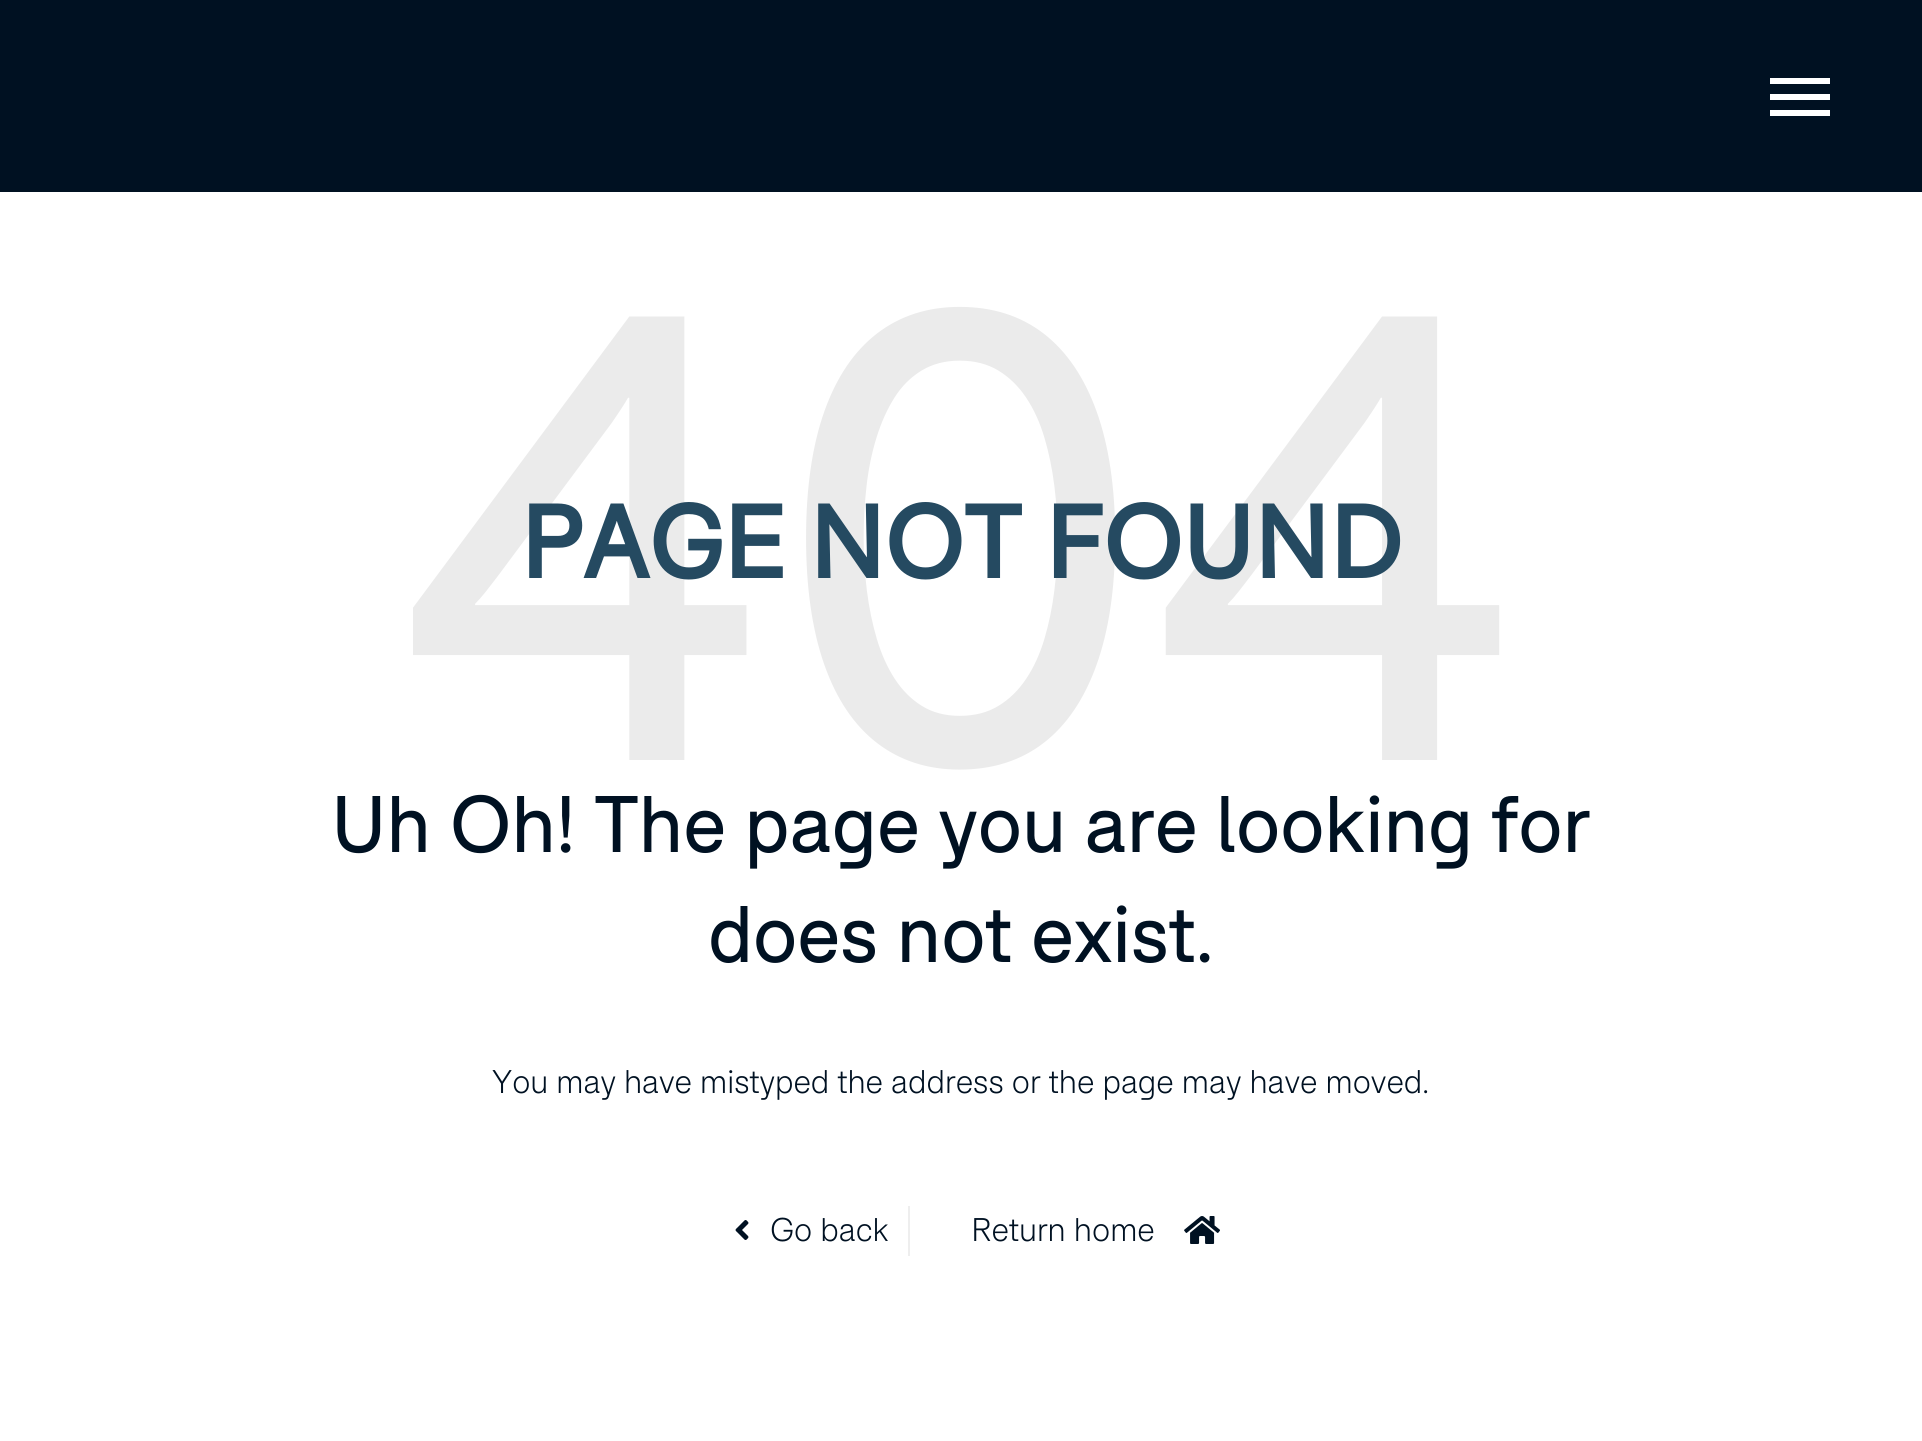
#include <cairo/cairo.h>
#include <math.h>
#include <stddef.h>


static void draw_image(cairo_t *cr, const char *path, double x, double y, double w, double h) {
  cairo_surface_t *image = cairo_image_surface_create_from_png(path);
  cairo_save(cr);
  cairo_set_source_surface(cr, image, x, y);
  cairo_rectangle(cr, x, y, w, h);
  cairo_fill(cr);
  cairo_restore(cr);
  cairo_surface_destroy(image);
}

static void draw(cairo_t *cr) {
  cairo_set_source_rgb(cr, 1, 1, 1);
  cairo_paint(cr);
  cairo_set_source_rgb(cr, 0, 17 / 255.0, 34 / 255.0);
  cairo_rectangle(cr, 0, 0, 1922, 192);
  cairo_fill(cr);
  cairo_set_source_rgb(cr, 1, 1, 1);
  cairo_rectangle(cr, 1770, 94, 60, 6);
  cairo_fill(cr);
  cairo_rectangle(cr, 1770, 78, 60, 6);
  cairo_fill(cr);
  cairo_rectangle(cr, 1770, 110, 60, 6);
  cairo_fill(cr);
  cairo_set_source_rgb(cr, 238 / 255.0, 238 / 255.0, 238 / 255.0);
  cairo_rectangle(cr, 908, 1206, 2, 50);
  cairo_fill(cr);
  draw_image(cr, "images/1.png", 735, 1220, 14, 20);
  draw_image(cr, "images/2.png", 1184, 1216, 36, 28);
  cairo_select_font_face(cr, "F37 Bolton", CAIRO_FONT_SLANT_NORMAL, CAIRO_FONT_WEIGHT_NORMAL);
  cairo_set_font_size(cr, 640);
  cairo_set_source_rgb(cr, 235 / 255.0, 235 / 255.0, 235 / 255.0);
  cairo_move_to(cr, 397, 760);
  cairo_show_text(cr, "404");
  cairo_select_font_face(cr, "F37 Bolton", CAIRO_FONT_SLANT_NORMAL, CAIRO_FONT_WEIGHT_BOLD);
  cairo_set_font_size(cr, 100);
  cairo_set_source_rgb(cr, 37 / 255.0, 74 / 255.0, 97 / 255.0);
  cairo_move_to(cr, 520, 578);
  cairo_show_text(cr, "PAGE NOT FOUND");
  cairo_select_font_face(cr, "F37 Bolton", CAIRO_FONT_SLANT_NORMAL, CAIRO_FONT_WEIGHT_NORMAL);
  cairo_set_font_size(cr, 78.1);
  cairo_set_source_rgb(cr, 0, 17 / 255.0, 34 / 255.0);
  cairo_move_to(cr, 331, 852);
  cairo_show_text(cr, "Uh Oh! The page you are looking for");
  cairo_move_to(cr, 708, 962);
  cairo_show_text(cr, "does not exist.");
  cairo_select_font_face(cr, "F37 Bolton Light", CAIRO_FONT_SLANT_NORMAL, CAIRO_FONT_WEIGHT_NORMAL);
  cairo_set_font_size(cr, 32);
  cairo_move_to(cr, 492, 1093);
  cairo_show_text(cr, "You may have mistyped the address or the page may have moved.");
  cairo_move_to(cr, 770, 1241);
  cairo_show_text(cr, "Go back");
  cairo_move_to(cr, 971, 1241);
  cairo_show_text(cr, "Return home");
}

int main(void) {
  cairo_surface_t *surface = cairo_image_surface_create(CAIRO_FORMAT_RGB24, 1922, 1441);
  cairo_t *cr = cairo_create(surface);
  cairo_font_options_t *options = cairo_font_options_create();
  cairo_font_options_set_hint_metrics(options, CAIRO_HINT_METRICS_OFF);
  cairo_font_options_set_hint_style(options, CAIRO_HINT_STYLE_NONE);
  cairo_set_font_options(cr, options);
  cairo_set_miter_limit(cr, 4);
  draw(cr);
  cairo_surface_write_to_png(surface, "out.png");
  cairo_font_options_destroy(options);
  cairo_destroy(cr);
  cairo_surface_destroy(surface);
  return 0;
}
